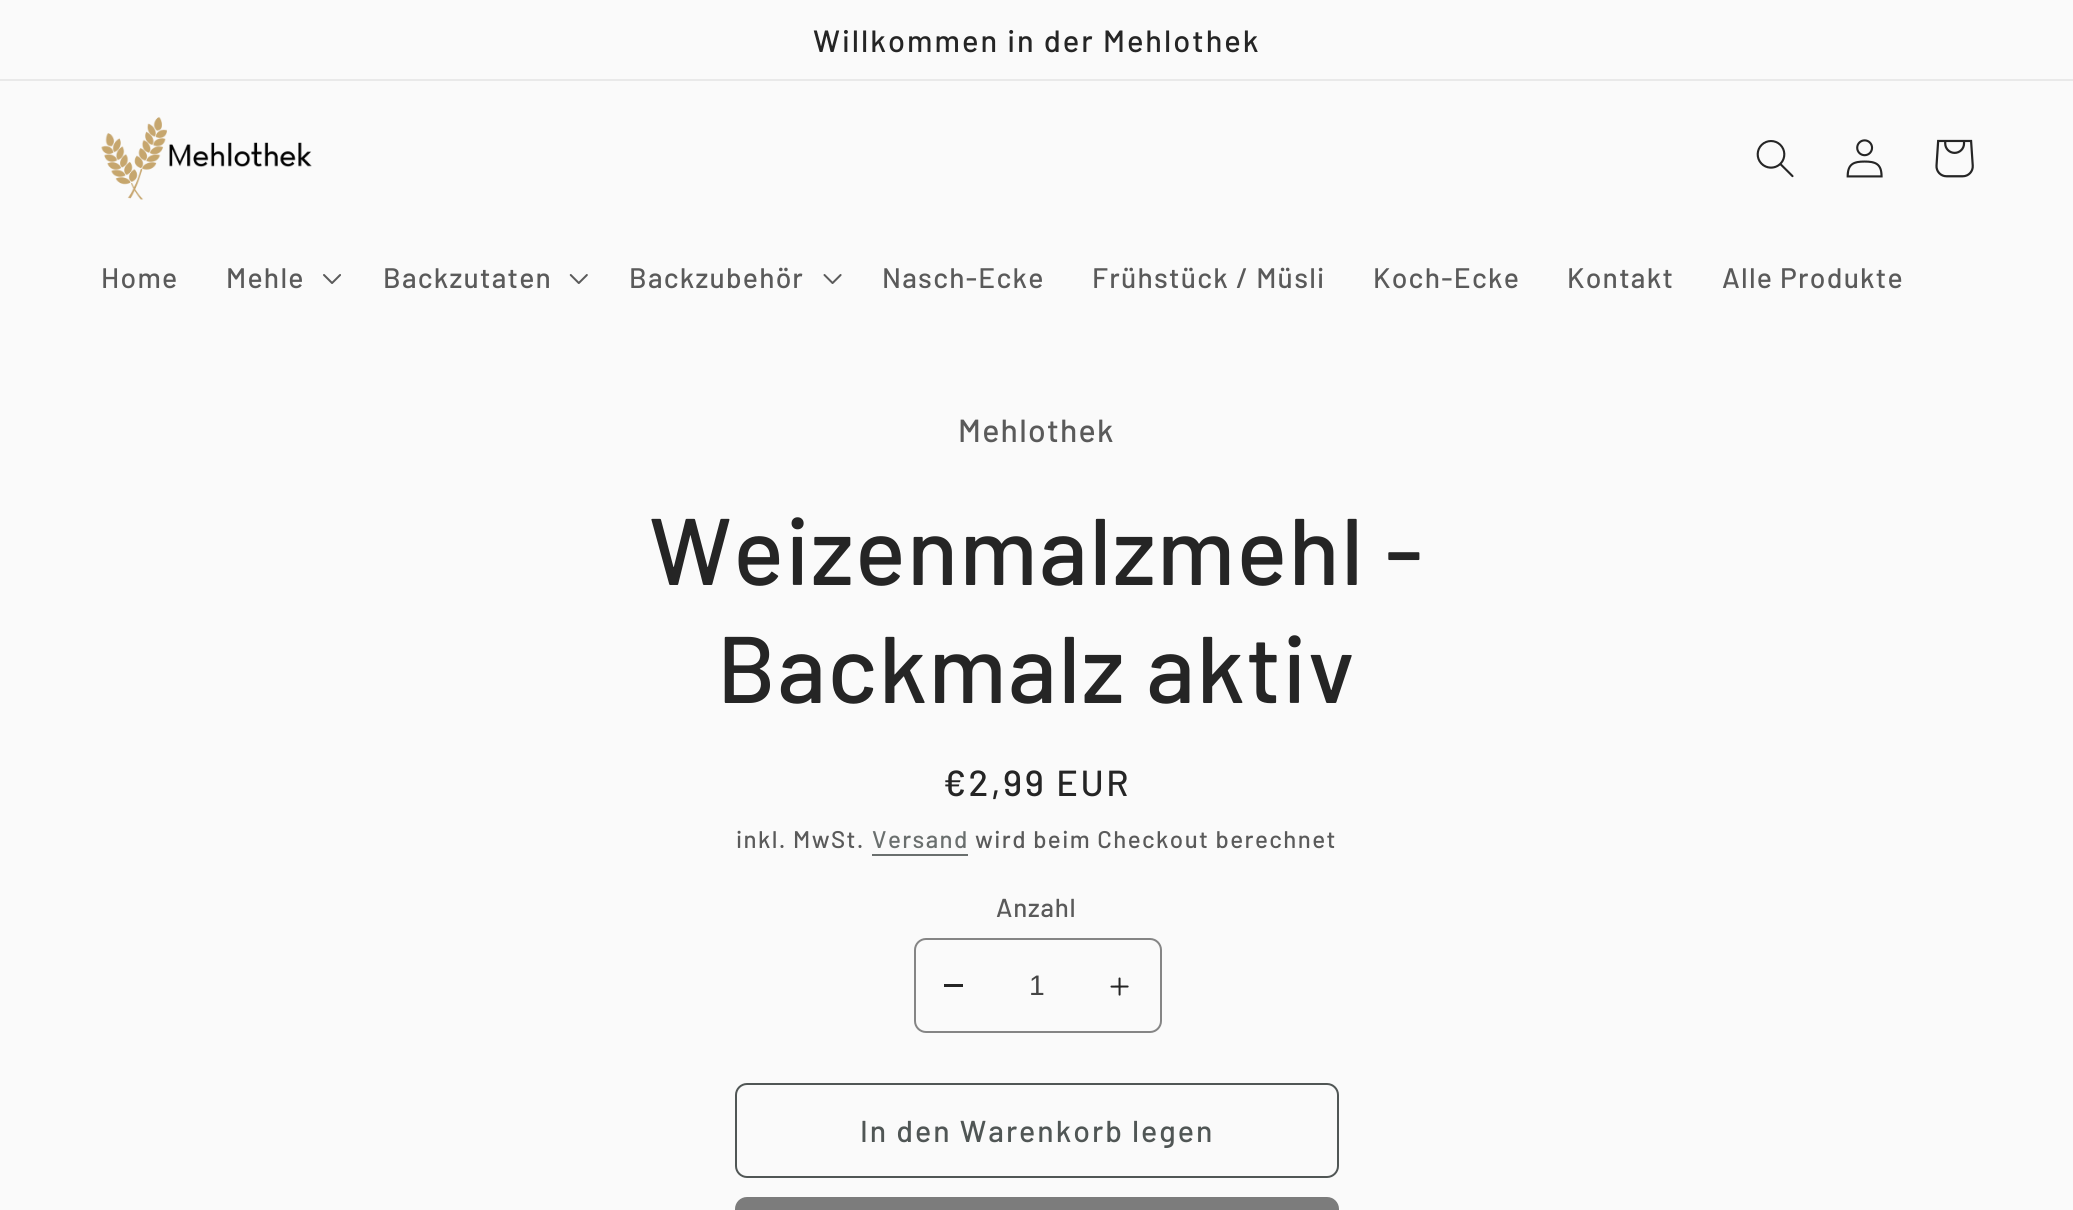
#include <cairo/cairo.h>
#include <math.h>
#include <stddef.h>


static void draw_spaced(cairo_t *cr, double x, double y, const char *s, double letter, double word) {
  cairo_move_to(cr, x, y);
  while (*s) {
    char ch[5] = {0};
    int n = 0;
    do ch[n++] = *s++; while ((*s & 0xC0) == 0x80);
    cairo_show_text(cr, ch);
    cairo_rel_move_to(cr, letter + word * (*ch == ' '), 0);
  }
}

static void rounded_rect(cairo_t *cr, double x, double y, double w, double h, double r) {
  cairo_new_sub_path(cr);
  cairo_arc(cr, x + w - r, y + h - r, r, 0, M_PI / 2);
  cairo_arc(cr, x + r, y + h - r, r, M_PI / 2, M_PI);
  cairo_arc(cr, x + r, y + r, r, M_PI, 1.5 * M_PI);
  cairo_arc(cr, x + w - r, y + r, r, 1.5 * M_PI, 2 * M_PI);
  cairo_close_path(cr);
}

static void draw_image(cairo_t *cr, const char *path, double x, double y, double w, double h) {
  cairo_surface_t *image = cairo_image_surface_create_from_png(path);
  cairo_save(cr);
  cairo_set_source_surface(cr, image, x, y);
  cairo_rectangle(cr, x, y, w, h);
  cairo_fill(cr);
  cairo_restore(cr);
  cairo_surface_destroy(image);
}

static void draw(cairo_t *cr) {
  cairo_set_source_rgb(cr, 250 / 255.0, 250 / 255.0, 250 / 255.0);
  cairo_paint(cr);
  cairo_set_source_rgb(cr, 233 / 255.0, 233 / 255.0, 233 / 255.0);
  cairo_rectangle(cr, 0, 79, 2073, 2);
  cairo_fill(cr);
  draw_image(cr, "images/1.png", 101, 117, 211, 83);
  draw_image(cr, "images/2.png", 1756, 140, 38, 38);
  draw_image(cr, "images/3.png", 1846, 139, 37, 39);
  draw_image(cr, "images/4.png", 1935, 139, 39, 39);
  draw_image(cr, "images/5.png", 323, 274, 18, 10);
  draw_image(cr, "images/6.png", 569, 274, 19, 10);
  draw_image(cr, "images/7.png", 823, 274, 19, 10);
  cairo_set_source_rgb(cr, 106 / 255.0, 111 / 255.0, 110 / 255.0);
  cairo_rectangle(cr, 872, 854, 96, 2);
  cairo_fill(cr);
  cairo_set_source_rgb(cr, 37 / 255.0, 37 / 255.0, 37 / 255.0);
  cairo_rectangle(cr, 944, 984, 19, 3);
  cairo_fill(cr);
  draw_image(cr, "images/8.png", 1110, 977, 19, 19);
  rounded_rect(cr, 915, 939, 246, 93, 11);
  cairo_set_source_rgb(cr, 133 / 255.0, 133 / 255.0, 133 / 255.0);
  cairo_stroke(cr);
  rounded_rect(cr, 736, 1084, 602, 93, 11);
  cairo_set_source_rgb(cr, 80 / 255.0, 86 / 255.0, 85 / 255.0);
  cairo_stroke(cr);
  cairo_set_source_rgb(cr, 124 / 255.0, 124 / 255.0, 124 / 255.0);
  rounded_rect(cr, 736, 1198, 602, 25, 11);
  cairo_fill_preserve(cr);
  cairo_stroke(cr);
  cairo_select_font_face(cr, "Barlow Medium", CAIRO_FONT_SLANT_NORMAL, CAIRO_FONT_WEIGHT_NORMAL);
  cairo_set_font_size(cr, 30.75);
  cairo_set_source_rgb(cr, 37 / 255.0, 37 / 255.0, 37 / 255.0);
  draw_spaced(cr, 813, 52, "Willkommen in der Mehlothek", 2, 0);
  cairo_set_font_size(cr, 28.25);
  cairo_set_source_rgb(cr, 90 / 255.0, 90 / 255.0, 90 / 255.0);
  draw_spaced(cr, 101, 288, "Home", 1.25, 0);
  draw_spaced(cr, 226, 288, "Mehle", 1.25, 0);
  draw_spaced(cr, 383, 288, "Backzutaten", 1.25, 0);
  draw_spaced(cr, 629, 288, "Backzubehör", 1.25, 0);
  draw_spaced(cr, 882, 288, "Nasch-Ecke", 1.25, 0);
  draw_spaced(cr, 1092, 288, "Frühstück / Müsli", 1.25, 0);
  draw_spaced(cr, 1373, 288, "Koch-Ecke", 1.25, 0);
  draw_spaced(cr, 1567, 288, "Kontakt", 1.25, 0);
  draw_spaced(cr, 1722, 288, "Alle Produkte", 1.25, 0);
  cairo_set_font_size(cr, 32);
  draw_spaced(cr, 958, 442, "Mehlothek", 1.25, 0);
  cairo_set_font_size(cr, 94.5);
  cairo_set_source_rgb(cr, 37 / 255.0, 37 / 255.0, 37 / 255.0);
  draw_spaced(cr, 649, 585, "Weizenmalzmehl -", 1.4, 0);
  draw_spaced(cr, 717, 703, "Backmalz aktiv", 1.4, 0);
  cairo_set_font_size(cr, 36.25);
  draw_spaced(cr, 943, 796, "€2,99 EUR", 2.6, 0);
  cairo_set_font_size(cr, 24.1);
  cairo_set_source_rgb(cr, 90 / 255.0, 90 / 255.0, 90 / 255.0);
  draw_spaced(cr, 736, 848, "inkl. MwSt.", 1.4, 0);
  cairo_set_source_rgb(cr, 106 / 255.0, 111 / 255.0, 110 / 255.0);
  draw_spaced(cr, 872, 848, "Versand", 1.4, 0);
  cairo_set_source_rgb(cr, 90 / 255.0, 90 / 255.0, 90 / 255.0);
  draw_spaced(cr, 975, 848, "wird beim Checkout berechnet", 1.4, 0);
  cairo_set_font_size(cr, 26);
  draw_spaced(cr, 996, 917, "Anzahl", 0.75, 0);
  cairo_select_font_face(cr, "Liberation Sans", CAIRO_FONT_SLANT_NORMAL, CAIRO_FONT_WEIGHT_NORMAL);
  cairo_set_font_size(cr, 28.25);
  cairo_set_source_rgb(cr, 69 / 255.0, 69 / 255.0, 69 / 255.0);
  cairo_move_to(cr, 1029, 995);
  cairo_show_text(cr, "1");
  cairo_select_font_face(cr, "Barlow Medium", CAIRO_FONT_SLANT_NORMAL, CAIRO_FONT_WEIGHT_NORMAL);
  cairo_set_font_size(cr, 30.25);
  cairo_set_source_rgb(cr, 80 / 255.0, 86 / 255.0, 85 / 255.0);
  draw_spaced(cr, 860, 1142, "In den Warenkorb legen", 2, 0);
}

int main(void) {
  cairo_surface_t *surface = cairo_image_surface_create(CAIRO_FORMAT_RGB24, 2073, 1210);
  cairo_t *cr = cairo_create(surface);
  cairo_font_options_t *options = cairo_font_options_create();
  cairo_font_options_set_hint_metrics(options, CAIRO_HINT_METRICS_OFF);
  cairo_font_options_set_hint_style(options, CAIRO_HINT_STYLE_NONE);
  cairo_set_font_options(cr, options);
  cairo_set_miter_limit(cr, 4);
  draw(cr);
  cairo_surface_write_to_png(surface, "out.png");
  cairo_font_options_destroy(options);
  cairo_destroy(cr);
  cairo_surface_destroy(surface);
  return 0;
}
